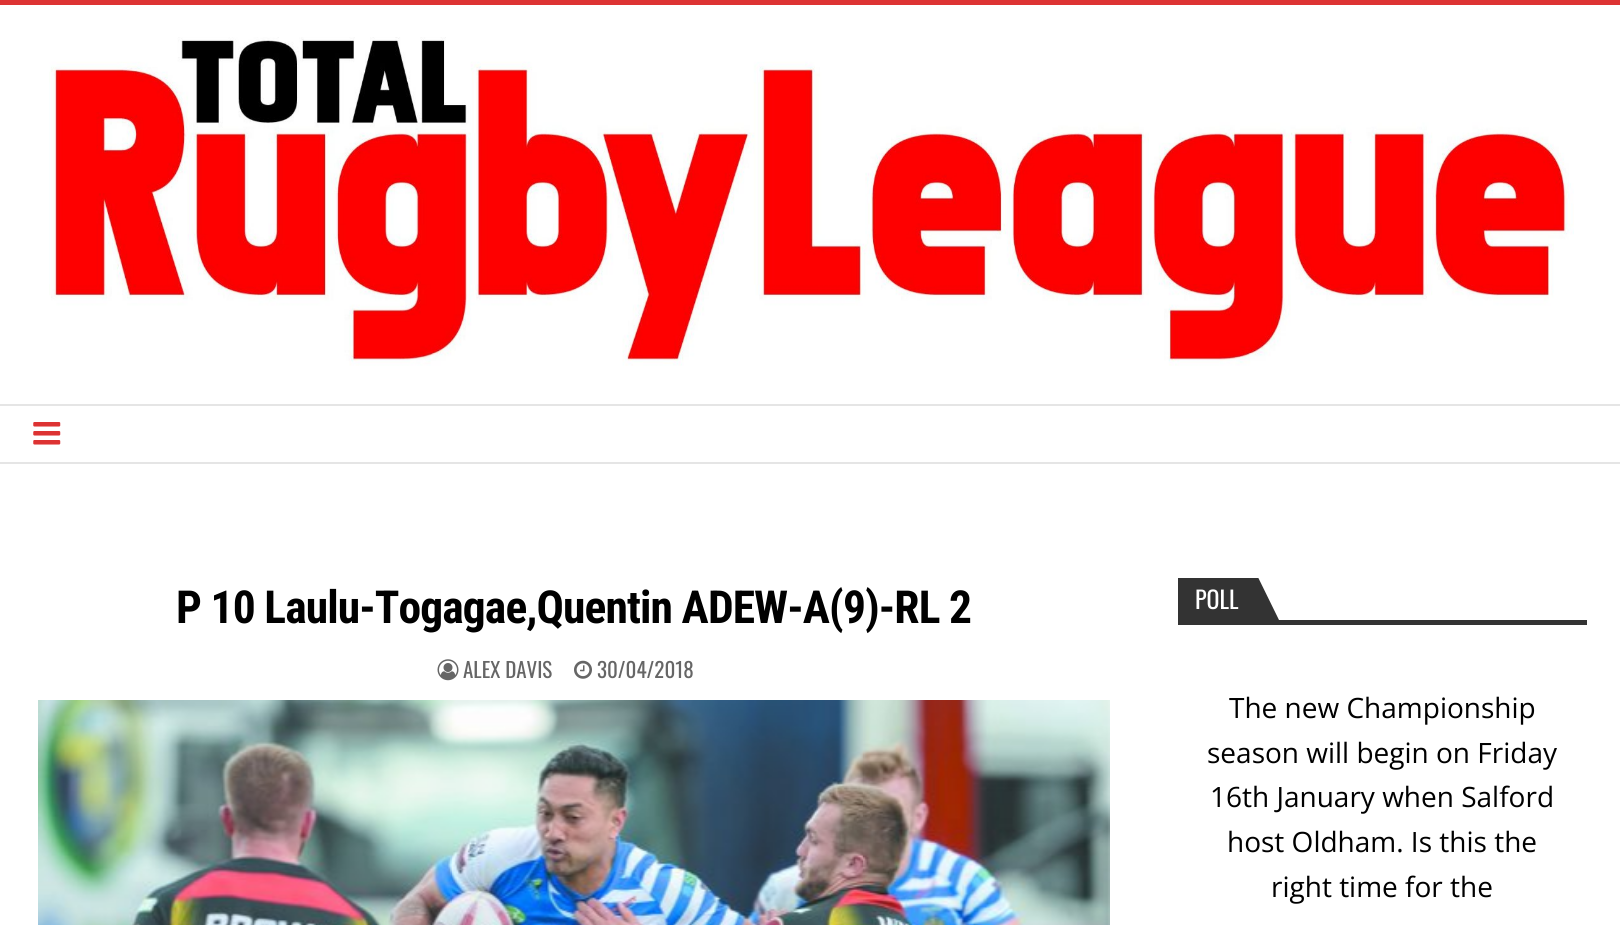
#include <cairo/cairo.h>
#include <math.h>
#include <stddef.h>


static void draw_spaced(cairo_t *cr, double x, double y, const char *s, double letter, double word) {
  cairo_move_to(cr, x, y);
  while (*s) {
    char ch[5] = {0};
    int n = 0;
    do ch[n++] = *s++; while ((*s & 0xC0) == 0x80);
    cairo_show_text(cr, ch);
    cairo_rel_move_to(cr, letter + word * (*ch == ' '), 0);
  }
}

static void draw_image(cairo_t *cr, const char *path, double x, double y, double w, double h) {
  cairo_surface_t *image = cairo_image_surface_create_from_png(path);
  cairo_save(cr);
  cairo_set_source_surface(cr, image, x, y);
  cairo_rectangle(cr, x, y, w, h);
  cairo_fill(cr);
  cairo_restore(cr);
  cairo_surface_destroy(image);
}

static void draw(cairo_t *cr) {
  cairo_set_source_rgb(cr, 1, 1, 1);
  cairo_paint(cr);
  cairo_set_source_rgb(cr, 221 / 255.0, 51 / 255.0, 51 / 255.0);
  cairo_rectangle(cr, 0, 0, 1620, 5);
  cairo_fill(cr);
  draw_image(cr, "images/1.png", 49, 37, 1525, 329);
  cairo_set_source_rgb(cr, 229 / 255.0, 229 / 255.0, 229 / 255.0);
  cairo_rectangle(cr, 0, 404, 1620, 2);
  cairo_fill(cr);
  cairo_rectangle(cr, 0, 462, 1620, 2);
  cairo_fill(cr);
  draw_image(cr, "images/2.png", 33, 422, 28, 23);
  draw_image(cr, "images/3.png", 437, 659, 22, 22);
  draw_image(cr, "images/4.png", 574, 660, 18, 19);
  draw_image(cr, "images/5.png", 38, 700, 1072, 225);
  cairo_set_source_rgb(cr, 51 / 255.0, 51 / 255.0, 51 / 255.0);
  cairo_rectangle(cr, 1178, 620, 409, 5);
  cairo_fill(cr);
  cairo_rectangle(cr, 1178, 578, 75, 42);
  cairo_fill(cr);
  cairo_save(cr);
  cairo_rectangle(cr, 1178, 578, 409, 42);
  cairo_clip(cr);
  cairo_new_path(cr);
  cairo_move_to(cr, 1253, 620);
  cairo_line_to(cr, 1253, 567);
  cairo_line_to(cr, 1279, 620);
  cairo_close_path(cr);
  cairo_fill(cr);
  cairo_restore(cr);
  cairo_select_font_face(cr, "Roboto Condensed", CAIRO_FONT_SLANT_NORMAL, CAIRO_FONT_WEIGHT_BOLD);
  cairo_set_font_size(cr, 45.5);
  cairo_set_source_rgb(cr, 0, 0, 0);
  draw_spaced(cr, 176, 623, "P 10 Laulu-Togagae,Quentin ADEW-A(9)-RL 2", -0.9, 0);
  cairo_select_font_face(cr, "Oswald", CAIRO_FONT_SLANT_NORMAL, CAIRO_FONT_WEIGHT_NORMAL);
  cairo_set_font_size(cr, 21);
  cairo_set_source_rgb(cr, 102 / 255.0, 102 / 255.0, 102 / 255.0);
  cairo_move_to(cr, 463, 678);
  cairo_show_text(cr, "ALEX DAVIS");
  cairo_move_to(cr, 597, 678);
  cairo_show_text(cr, "30/04/2018");
  cairo_set_font_size(cr, 24);
  cairo_set_source_rgb(cr, 1, 1, 1);
  cairo_move_to(cr, 1195, 609);
  cairo_show_text(cr, "POLL");
  cairo_select_font_face(cr, "Open Sans", CAIRO_FONT_SLANT_NORMAL, CAIRO_FONT_WEIGHT_NORMAL);
  cairo_set_font_size(cr, 28);
  cairo_set_source_rgb(cr, 0, 0, 0);
  cairo_move_to(cr, 1229, 718);
  cairo_show_text(cr, "The new Championship");
  cairo_move_to(cr, 1207, 763);
  cairo_show_text(cr, "season will begin on Friday");
  cairo_move_to(cr, 1210, 807);
  cairo_show_text(cr, "16th January when Salford");
  cairo_move_to(cr, 1227, 852);
  cairo_show_text(cr, "host Oldham. Is this the");
  cairo_move_to(cr, 1271, 897);
  cairo_show_text(cr, "right time for the");
}

int main(void) {
  cairo_surface_t *surface = cairo_image_surface_create(CAIRO_FORMAT_RGB24, 1620, 925);
  cairo_t *cr = cairo_create(surface);
  cairo_font_options_t *options = cairo_font_options_create();
  cairo_font_options_set_hint_metrics(options, CAIRO_HINT_METRICS_OFF);
  cairo_font_options_set_hint_style(options, CAIRO_HINT_STYLE_NONE);
  cairo_set_font_options(cr, options);
  cairo_set_miter_limit(cr, 4);
  draw(cr);
  cairo_surface_write_to_png(surface, "out.png");
  cairo_font_options_destroy(options);
  cairo_destroy(cr);
  cairo_surface_destroy(surface);
  return 0;
}
